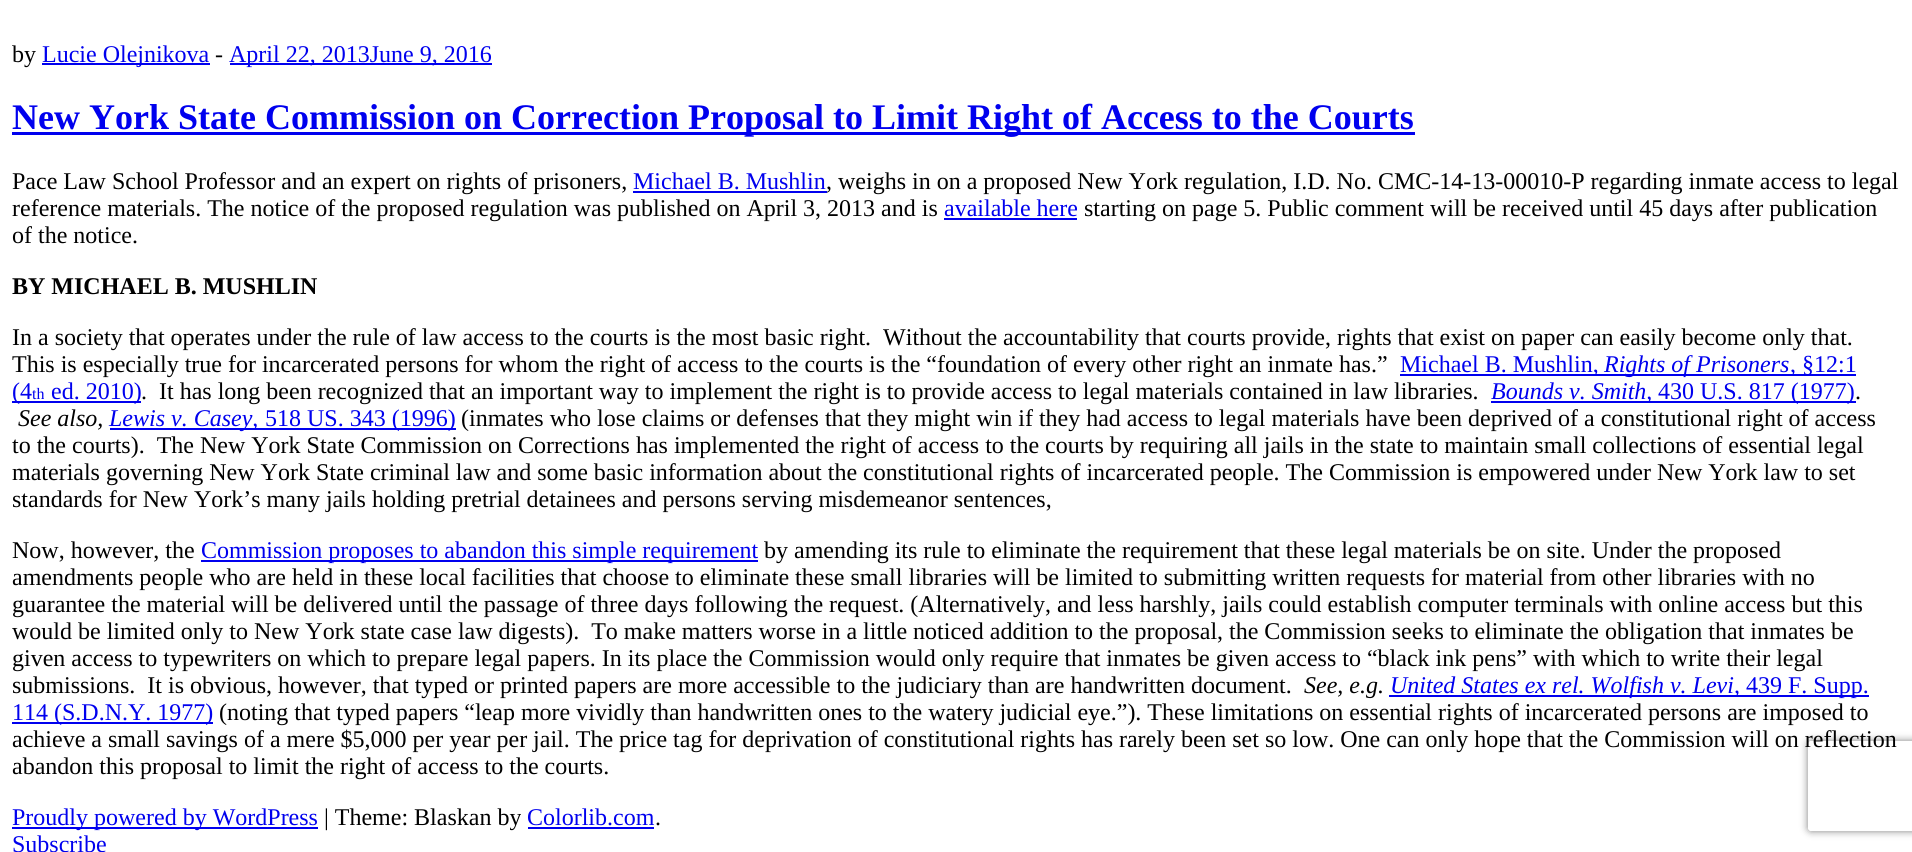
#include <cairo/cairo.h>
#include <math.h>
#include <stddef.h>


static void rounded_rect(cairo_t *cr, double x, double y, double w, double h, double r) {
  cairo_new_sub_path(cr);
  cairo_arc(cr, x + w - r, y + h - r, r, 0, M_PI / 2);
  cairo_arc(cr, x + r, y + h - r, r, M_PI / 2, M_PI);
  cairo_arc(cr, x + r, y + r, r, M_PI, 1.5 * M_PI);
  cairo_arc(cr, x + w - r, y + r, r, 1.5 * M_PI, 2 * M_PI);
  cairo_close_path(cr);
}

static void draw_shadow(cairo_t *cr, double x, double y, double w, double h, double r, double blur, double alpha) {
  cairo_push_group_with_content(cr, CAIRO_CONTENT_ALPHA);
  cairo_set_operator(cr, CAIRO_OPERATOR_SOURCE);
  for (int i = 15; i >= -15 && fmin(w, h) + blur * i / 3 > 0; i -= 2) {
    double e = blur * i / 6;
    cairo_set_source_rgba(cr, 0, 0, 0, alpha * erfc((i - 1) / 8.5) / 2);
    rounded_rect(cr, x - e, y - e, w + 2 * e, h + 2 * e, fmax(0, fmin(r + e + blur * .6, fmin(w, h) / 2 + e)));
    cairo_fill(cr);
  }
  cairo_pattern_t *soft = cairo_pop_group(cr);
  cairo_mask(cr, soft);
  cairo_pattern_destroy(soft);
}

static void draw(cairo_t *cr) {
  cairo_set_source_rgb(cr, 1, 1, 1);
  cairo_paint(cr);
  cairo_set_source_rgb(cr, 0, 0, 238 / 255.0);
  cairo_rectangle(cr, 42, 63, 168, 2);
  cairo_fill(cr);
  cairo_rectangle(cr, 230, 63, 262, 2);
  cairo_fill(cr);
  cairo_rectangle(cr, 12, 132, 1403, 3);
  cairo_fill(cr);
  cairo_rectangle(cr, 633, 191, 194, 2);
  cairo_fill(cr);
  cairo_rectangle(cr, 944, 218, 133, 2);
  cairo_fill(cr);
  cairo_rectangle(cr, 1400, 374, 456, 2);
  cairo_fill(cr);
  cairo_rectangle(cr, 12, 401, 129, 2);
  cairo_fill(cr);
  cairo_rectangle(cr, 1491, 401, 365, 2);
  cairo_fill(cr);
  cairo_rectangle(cr, 110, 428, 346, 2);
  cairo_fill(cr);
  cairo_rectangle(cr, 201, 560, 557, 2);
  cairo_fill(cr);
  cairo_rectangle(cr, 1389, 695, 480, 2);
  cairo_fill(cr);
  cairo_rectangle(cr, 12, 722, 201, 2);
  cairo_fill(cr);
  cairo_rectangle(cr, 12, 827, 306, 2);
  cairo_fill(cr);
  cairo_rectangle(cr, 528, 827, 126, 2);
  cairo_fill(cr);
  cairo_save(cr);
  cairo_set_fill_rule(cr, CAIRO_FILL_RULE_EVEN_ODD);
  cairo_new_path(cr);
  cairo_move_to(cr, 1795, 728);
  cairo_line_to(cr, 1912, 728);
  cairo_line_to(cr, 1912, 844);
  cairo_line_to(cr, 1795, 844);
  cairo_close_path(cr);
  cairo_move_to(cr, 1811, 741);
  cairo_line_to(cr, 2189, 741);
  cairo_curve_to(cr, 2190.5, 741, 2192, 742.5, 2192, 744);
  cairo_line_to(cr, 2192, 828);
  cairo_curve_to(cr, 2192, 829.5, 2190.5, 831, 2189, 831);
  cairo_line_to(cr, 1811, 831);
  cairo_curve_to(cr, 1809.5, 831, 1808, 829.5, 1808, 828);
  cairo_line_to(cr, 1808, 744);
  cairo_curve_to(cr, 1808, 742.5, 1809.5, 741, 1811, 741);
  cairo_close_path(cr);
  cairo_clip(cr);
  cairo_set_source_rgb(cr, 128 / 255.0, 128 / 255.0, 128 / 255.0);
  draw_shadow(cr, 1808, 741, 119, 90, 3, 4, 1);
  cairo_restore(cr);
  cairo_select_font_face(cr, "Liberation Serif", CAIRO_FONT_SLANT_NORMAL, CAIRO_FONT_WEIGHT_NORMAL);
  cairo_set_font_size(cr, 24);
  cairo_set_source_rgb(cr, 0, 0, 0);
  cairo_move_to(cr, 12, 62);
  cairo_show_text(cr, "by");
  cairo_set_source_rgb(cr, 0, 0, 238 / 255.0);
  cairo_move_to(cr, 42, 62);
  cairo_show_text(cr, "Lucie Olejnikova");
  cairo_set_source_rgb(cr, 0, 0, 0);
  cairo_move_to(cr, 215, 62);
  cairo_show_text(cr, "-");
  cairo_set_source_rgb(cr, 0, 0, 238 / 255.0);
  cairo_move_to(cr, 229, 62);
  cairo_show_text(cr, "April 22, 2013June 9, 2016");
  cairo_select_font_face(cr, "Liberation Serif", CAIRO_FONT_SLANT_NORMAL, CAIRO_FONT_WEIGHT_BOLD);
  cairo_set_font_size(cr, 36);
  cairo_move_to(cr, 12, 129);
  cairo_show_text(cr, "New York State Commission on Correction Proposal to Limit Right of Access to the Courts");
  cairo_select_font_face(cr, "Liberation Serif", CAIRO_FONT_SLANT_NORMAL, CAIRO_FONT_WEIGHT_NORMAL);
  cairo_set_font_size(cr, 24);
  cairo_set_source_rgb(cr, 0, 0, 0);
  cairo_move_to(cr, 12, 189);
  cairo_show_text(cr, "Pace Law School Professor and an expert on rights of prisoners,");
  cairo_set_source_rgb(cr, 0, 0, 238 / 255.0);
  cairo_move_to(cr, 633, 189);
  cairo_show_text(cr, "Michael B. Mushlin");
  cairo_set_source_rgb(cr, 0, 0, 0);
  cairo_move_to(cr, 826, 189);
  cairo_show_text(cr, ", weighs in on a proposed New York regulation, I.D. No. CMC-14-13-00010-P regarding inmate access to legal");
  cairo_move_to(cr, 12, 216);
  cairo_show_text(cr, "reference materials. The notice of the proposed regulation was published on April 3, 2013 and is");
  cairo_set_source_rgb(cr, 0, 0, 238 / 255.0);
  cairo_move_to(cr, 944, 216);
  cairo_show_text(cr, "available here");
  cairo_set_source_rgb(cr, 0, 0, 0);
  cairo_move_to(cr, 1084, 216);
  cairo_show_text(cr, "starting on page 5. Public comment will be received until 45 days after publication");
  cairo_move_to(cr, 12, 243);
  cairo_show_text(cr, "of the notice.");
  cairo_select_font_face(cr, "Liberation Serif", CAIRO_FONT_SLANT_NORMAL, CAIRO_FONT_WEIGHT_BOLD);
  cairo_move_to(cr, 12, 294);
  cairo_show_text(cr, "BY MICHAEL B. MUSHLIN");
  cairo_select_font_face(cr, "Liberation Serif", CAIRO_FONT_SLANT_NORMAL, CAIRO_FONT_WEIGHT_NORMAL);
  cairo_move_to(cr, 12, 345);
  cairo_show_text(cr, "In a society that operates under the rule of law access to the courts is the most basic right.  Without the accountability that courts provide, rights that exist on paper can easily become only that.");
  cairo_move_to(cr, 12, 372);
  cairo_show_text(cr, "This is especially true for incarcerated persons for whom the right of access to the courts is the “foundation of every other right an inmate has.”");
  cairo_set_source_rgb(cr, 0, 0, 238 / 255.0);
  cairo_move_to(cr, 1400, 372);
  cairo_show_text(cr, "Michael B. Mushlin,");
  cairo_select_font_face(cr, "Liberation Serif", CAIRO_FONT_SLANT_ITALIC, CAIRO_FONT_WEIGHT_NORMAL);
  cairo_move_to(cr, 1604, 372);
  cairo_show_text(cr, "Rights of Prisoners");
  cairo_select_font_face(cr, "Liberation Serif", CAIRO_FONT_SLANT_NORMAL, CAIRO_FONT_WEIGHT_NORMAL);
  cairo_move_to(cr, 1790, 372);
  cairo_show_text(cr, ", §12:1");
  cairo_move_to(cr, 12, 399);
  cairo_show_text(cr, "(4");
  cairo_set_font_size(cr, 16);
  cairo_move_to(cr, 32, 399);
  cairo_show_text(cr, "th");
  cairo_set_font_size(cr, 24);
  cairo_move_to(cr, 51, 399);
  cairo_show_text(cr, "ed. 2010)");
  cairo_set_source_rgb(cr, 0, 0, 0);
  cairo_move_to(cr, 141, 399);
  cairo_show_text(cr, ".  It has long been recognized that an important way to implement the right is to provide access to legal materials contained in law libraries.");
  cairo_select_font_face(cr, "Liberation Serif", CAIRO_FONT_SLANT_ITALIC, CAIRO_FONT_WEIGHT_NORMAL);
  cairo_set_source_rgb(cr, 0, 0, 238 / 255.0);
  cairo_move_to(cr, 1491, 399);
  cairo_show_text(cr, "Bounds v. Smith,");
  cairo_select_font_face(cr, "Liberation Serif", CAIRO_FONT_SLANT_NORMAL, CAIRO_FONT_WEIGHT_NORMAL);
  cairo_move_to(cr, 1658, 399);
  cairo_show_text(cr, "430 U.S. 817 (1977)");
  cairo_set_source_rgb(cr, 0, 0, 0);
  cairo_move_to(cr, 1855, 399);
  cairo_show_text(cr, ".");
  cairo_select_font_face(cr, "Liberation Serif", CAIRO_FONT_SLANT_ITALIC, CAIRO_FONT_WEIGHT_NORMAL);
  cairo_move_to(cr, 18, 426);
  cairo_show_text(cr, "See also,");
  cairo_set_source_rgb(cr, 0, 0, 238 / 255.0);
  cairo_move_to(cr, 109, 426);
  cairo_show_text(cr, "Lewis v. Casey,");
  cairo_select_font_face(cr, "Liberation Serif", CAIRO_FONT_SLANT_NORMAL, CAIRO_FONT_WEIGHT_NORMAL);
  cairo_move_to(cr, 265, 426);
  cairo_show_text(cr, "518 US. 343 (1996)");
  cairo_set_source_rgb(cr, 0, 0, 0);
  cairo_move_to(cr, 461, 426);
  cairo_show_text(cr, "(inmates who lose claims or defenses that they might win if they had access to legal materials have been deprived of a constitutional right of access");
  cairo_move_to(cr, 12, 453);
  cairo_show_text(cr, "to the courts).  The New York State Commission on Corrections has implemented the right of access to the courts by requiring all jails in the state to maintain small collections of essential legal");
  cairo_move_to(cr, 12, 480);
  cairo_show_text(cr, "materials governing New York State criminal law and some basic information about the constitutional rights of incarcerated people. The Commission is empowered under New York law to set");
  cairo_move_to(cr, 12, 507);
  cairo_show_text(cr, "standards for New York’s many jails holding pretrial detainees and persons serving misdemeanor sentences,");
  cairo_move_to(cr, 12, 558);
  cairo_show_text(cr, "Now, however, the");
  cairo_set_source_rgb(cr, 0, 0, 238 / 255.0);
  cairo_move_to(cr, 201, 558);
  cairo_show_text(cr, "Commission proposes to abandon this simple requirement");
  cairo_set_source_rgb(cr, 0, 0, 0);
  cairo_move_to(cr, 764, 558);
  cairo_show_text(cr, "by amending its rule to eliminate the requirement that these legal materials be on site. Under the proposed");
  cairo_move_to(cr, 12, 585);
  cairo_show_text(cr, "amendments people who are held in these local facilities that choose to eliminate these small libraries will be limited to submitting written requests for material from other libraries with no");
  cairo_move_to(cr, 12, 612);
  cairo_show_text(cr, "guarantee the material will be delivered until the passage of three days following the request. (Alternatively, and less harshly, jails could establish computer terminals with online access but this");
  cairo_move_to(cr, 12, 639);
  cairo_show_text(cr, "would be limited only to New York state case law digests).  To make matters worse in a little noticed addition to the proposal, the Commission seeks to eliminate the obligation that inmates be");
  cairo_move_to(cr, 12, 666);
  cairo_show_text(cr, "given access to typewriters on which to prepare legal papers. In its place the Commission would only require that inmates be given access to “black ink pens” with which to write their legal");
  cairo_move_to(cr, 12, 693);
  cairo_show_text(cr, "submissions.  It is obvious, however, that typed or printed papers are more accessible to the judiciary than are handwritten document.");
  cairo_select_font_face(cr, "Liberation Serif", CAIRO_FONT_SLANT_ITALIC, CAIRO_FONT_WEIGHT_NORMAL);
  cairo_move_to(cr, 1304, 693);
  cairo_show_text(cr, "See, e.g.");
  cairo_set_source_rgb(cr, 0, 0, 238 / 255.0);
  cairo_move_to(cr, 1390, 693);
  cairo_show_text(cr, "United States ex rel. Wolfish v. Levi,");
  cairo_select_font_face(cr, "Liberation Serif", CAIRO_FONT_SLANT_NORMAL, CAIRO_FONT_WEIGHT_NORMAL);
  cairo_move_to(cr, 1746, 693);
  cairo_show_text(cr, "439 F. Supp.");
  cairo_move_to(cr, 12, 720);
  cairo_show_text(cr, "114 (S.D.N.Y. 1977)");
  cairo_set_source_rgb(cr, 0, 0, 0);
  cairo_move_to(cr, 219, 720);
  cairo_show_text(cr, "(noting that typed papers “leap more vividly than handwritten ones to the watery judicial eye.”). These limitations on essential rights of incarcerated persons are imposed to");
  cairo_move_to(cr, 12, 747);
  cairo_show_text(cr, "achieve a small savings of a mere $5,000 per year per jail. The price tag for deprivation of constitutional rights has rarely been set so low. One can only hope that the Commission will on reflection");
  cairo_move_to(cr, 12, 774);
  cairo_show_text(cr, "abandon this proposal to limit the right of access to the courts.");
  cairo_set_source_rgb(cr, 0, 0, 238 / 255.0);
  cairo_move_to(cr, 12, 825);
  cairo_show_text(cr, "Proudly powered by WordPress");
  cairo_set_source_rgb(cr, 0, 0, 0);
  cairo_move_to(cr, 324, 825);
  cairo_show_text(cr, "| Theme: Blaskan by");
  cairo_set_source_rgb(cr, 0, 0, 238 / 255.0);
  cairo_move_to(cr, 527, 825);
  cairo_show_text(cr, "Colorlib.com");
  cairo_set_source_rgb(cr, 0, 0, 0);
  cairo_move_to(cr, 655, 825);
  cairo_show_text(cr, ".");
  cairo_set_source_rgb(cr, 0, 0, 238 / 255.0);
  cairo_move_to(cr, 12, 852);
  cairo_show_text(cr, "Subscribe");
}

int main(void) {
  cairo_surface_t *surface = cairo_image_surface_create(CAIRO_FORMAT_RGB24, 1912, 852);
  cairo_t *cr = cairo_create(surface);
  cairo_font_options_t *options = cairo_font_options_create();
  cairo_font_options_set_hint_metrics(options, CAIRO_HINT_METRICS_OFF);
  cairo_font_options_set_hint_style(options, CAIRO_HINT_STYLE_NONE);
  cairo_set_font_options(cr, options);
  cairo_set_miter_limit(cr, 4);
  draw(cr);
  cairo_surface_write_to_png(surface, "out.png");
  cairo_font_options_destroy(options);
  cairo_destroy(cr);
  cairo_surface_destroy(surface);
  return 0;
}
